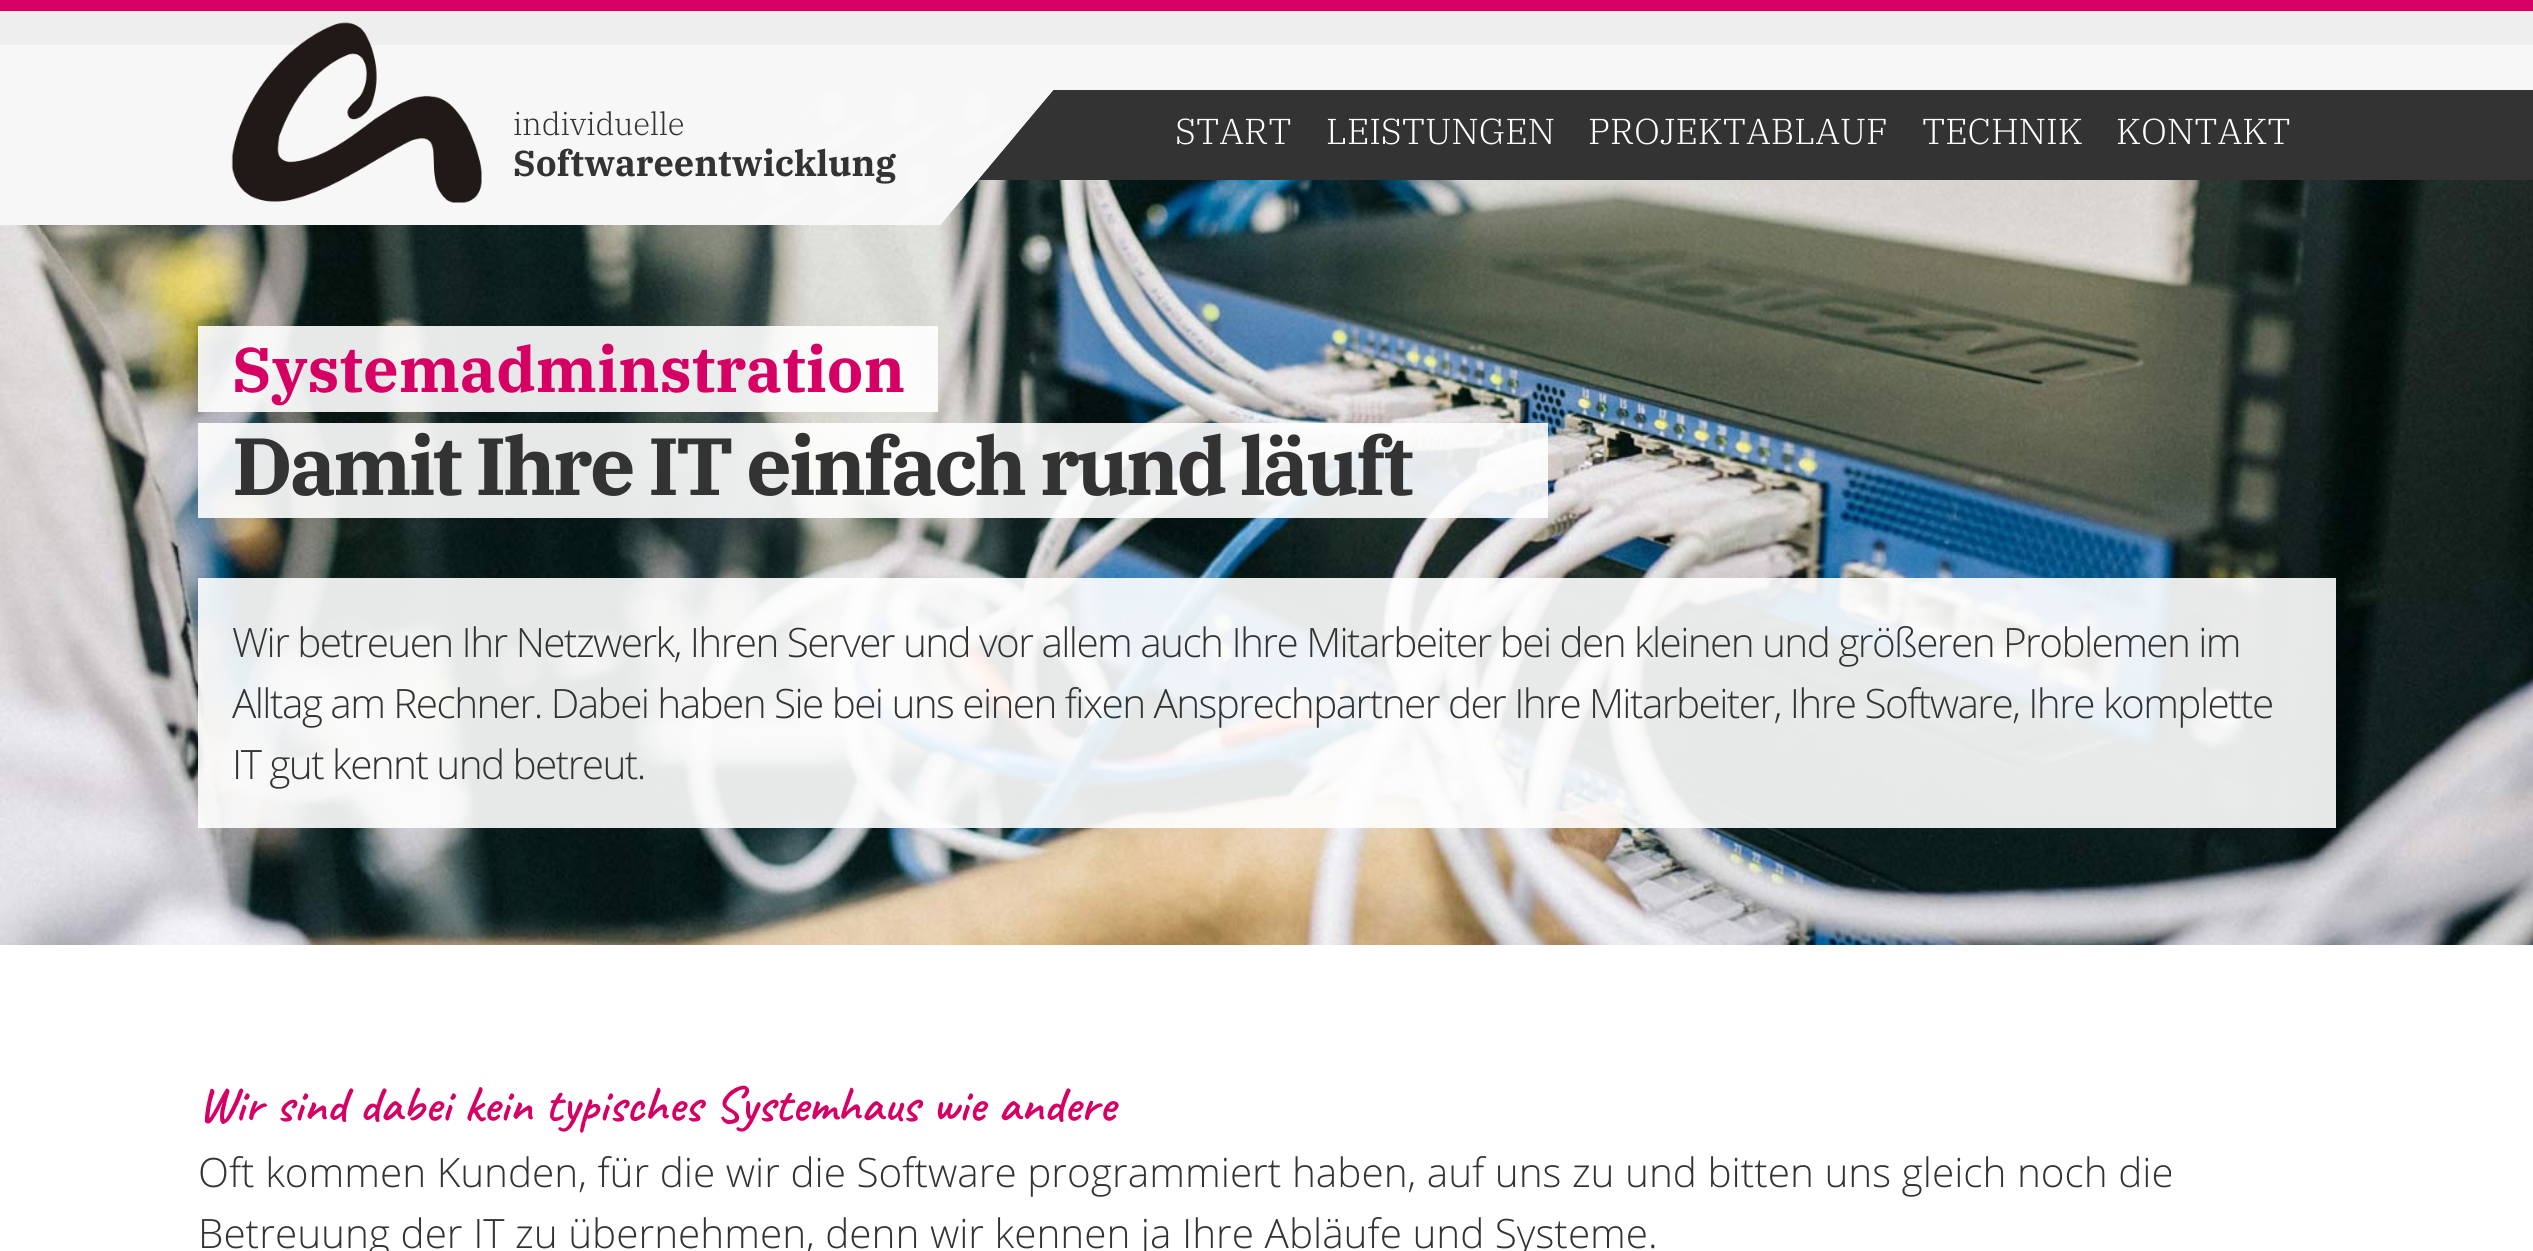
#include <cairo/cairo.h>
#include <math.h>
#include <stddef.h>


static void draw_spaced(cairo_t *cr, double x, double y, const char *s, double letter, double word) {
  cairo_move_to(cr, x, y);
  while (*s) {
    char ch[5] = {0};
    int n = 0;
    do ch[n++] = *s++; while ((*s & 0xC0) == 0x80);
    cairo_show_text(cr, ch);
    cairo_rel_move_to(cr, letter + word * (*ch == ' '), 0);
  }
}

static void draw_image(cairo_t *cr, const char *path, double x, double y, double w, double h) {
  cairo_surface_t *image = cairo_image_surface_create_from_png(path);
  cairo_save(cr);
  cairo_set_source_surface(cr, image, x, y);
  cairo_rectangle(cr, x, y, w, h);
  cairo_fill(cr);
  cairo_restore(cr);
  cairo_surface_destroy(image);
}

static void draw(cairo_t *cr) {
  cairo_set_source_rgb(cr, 1, 1, 1);
  cairo_paint(cr);
  cairo_set_source_rgb(cr, 247 / 255.0, 247 / 255.0, 247 / 255.0);
  cairo_rectangle(cr, 0, 45, 2533, 45);
  cairo_fill(cr);
  cairo_set_source_rgb(cr, 238 / 255.0, 238 / 255.0, 238 / 255.0);
  cairo_rectangle(cr, 0, 11, 2533, 34);
  cairo_fill(cr);
  cairo_set_source_rgb(cr, 214 / 255.0, 0, 101 / 255.0);
  cairo_rectangle(cr, 0, 0, 2533, 11);
  cairo_fill(cr);
  draw_image(cr, "images/3.png", 0, 180, 2533, 765);
  cairo_set_source_rgb(cr, 247 / 255.0, 247 / 255.0, 247 / 255.0);
  cairo_rectangle(cr, 0, 90, 828, 135);
  cairo_fill(cr);
  cairo_set_source_rgb(cr, 51 / 255.0, 51 / 255.0, 51 / 255.0);
  cairo_rectangle(cr, 977, 90, 1556, 90);
  cairo_fill(cr);
  cairo_set_source_rgb(cr, 1, 1, 1);
  cairo_new_path(cr);
  cairo_move_to(cr, 828, 90);
  cairo_line_to(cr, 1053, 90);
  cairo_line_to(cr, 940, 225);
  cairo_line_to(cr, 715, 225);
  cairo_close_path(cr);
  cairo_fill(cr);
  draw_image(cr, "images/1.png", 716, 90, 338, 135);
  draw_image(cr, "images/2.png", 231, 22, 251, 181);
  cairo_set_source_rgba(cr, 1, 1, 1, 0.9);
  cairo_rectangle(cr, 198, 326, 740, 86);
  cairo_fill(cr);
  cairo_rectangle(cr, 198, 423, 1350, 95);
  cairo_fill(cr);
  cairo_rectangle(cr, 198, 578, 2138, 250);
  cairo_fill(cr);
  cairo_select_font_face(cr, "IBM Plex Serif Light", CAIRO_FONT_SLANT_NORMAL, CAIRO_FONT_WEIGHT_NORMAL);
  cairo_set_font_size(cr, 31.5);
  cairo_set_source_rgb(cr, 51 / 255.0, 51 / 255.0, 51 / 255.0);
  cairo_move_to(cr, 513, 135);
  cairo_show_text(cr, "individuelle");
  cairo_select_font_face(cr, "IBM Plex Serif", CAIRO_FONT_SLANT_NORMAL, CAIRO_FONT_WEIGHT_BOLD);
  cairo_set_font_size(cr, 36);
  cairo_move_to(cr, 513, 176);
  cairo_show_text(cr, "Softwareentwicklung");
  cairo_select_font_face(cr, "IBM Plex Serif Light", CAIRO_FONT_SLANT_NORMAL, CAIRO_FONT_WEIGHT_NORMAL);
  cairo_set_source_rgb(cr, 1, 1, 1);
  cairo_move_to(cr, 1175, 144);
  cairo_show_text(cr, "START");
  cairo_move_to(cr, 1326, 144);
  cairo_show_text(cr, "LEISTUNGEN");
  cairo_move_to(cr, 1588, 144);
  cairo_show_text(cr, "PROJEKTABLAUF");
  cairo_move_to(cr, 1922, 144);
  cairo_show_text(cr, "TECHNIK");
  cairo_move_to(cr, 2116, 144);
  cairo_show_text(cr, "KONTAKT");
  cairo_select_font_face(cr, "IBM Plex Serif", CAIRO_FONT_SLANT_NORMAL, CAIRO_FONT_WEIGHT_BOLD);
  cairo_set_font_size(cr, 63);
  cairo_set_source_rgb(cr, 214 / 255.0, 0, 101 / 255.0);
  cairo_move_to(cr, 232, 392);
  cairo_show_text(cr, "Systemadminstration");
  cairo_set_font_size(cr, 81);
  cairo_set_source_rgb(cr, 51 / 255.0, 51 / 255.0, 51 / 255.0);
  draw_spaced(cr, 232, 495, "Damit Ihre IT einfach rund läuft", -3.15, 0);
  cairo_select_font_face(cr, "Open Sans Light", CAIRO_FONT_SLANT_NORMAL, CAIRO_FONT_WEIGHT_NORMAL);
  cairo_set_font_size(cr, 40.5);
  draw_spaced(cr, 232, 657, "Wir betreuen Ihr Netzwerk, Ihren Server und vor allem auch Ihre Mitarbeiter bei den kleinen und größeren Problemen im", -1.57, 0);
  draw_spaced(cr, 232, 718, "Alltag am Rechner. Dabei haben Sie bei uns einen fixen Ansprechpartner der Ihre Mitarbeiter, Ihre Software, Ihre komplette", -1.57, 0);
  draw_spaced(cr, 232, 779, "IT gut kennt und betreut.", -1.57, 0);
  cairo_select_font_face(cr, "Caveat SemiBold", CAIRO_FONT_SLANT_NORMAL, CAIRO_FONT_WEIGHT_NORMAL);
  cairo_set_font_size(cr, 50.6);
  cairo_set_source_rgb(cr, 214 / 255.0, 0, 101 / 255.0);
  draw_spaced(cr, 198, 1121, "Wir sind dabei kein typisches Systemhaus wie andere", 0, 0.75);
  cairo_select_font_face(cr, "Open Sans Light", CAIRO_FONT_SLANT_NORMAL, CAIRO_FONT_WEIGHT_NORMAL);
  cairo_set_font_size(cr, 40.5);
  cairo_set_source_rgb(cr, 51 / 255.0, 51 / 255.0, 51 / 255.0);
  cairo_move_to(cr, 198, 1187);
  cairo_show_text(cr, "Oft kommen Kunden, für die wir die Software programmiert haben, auf uns zu und bitten uns gleich noch die");
  cairo_move_to(cr, 198, 1248);
  cairo_show_text(cr, "Betreuung der IT zu übernehmen, denn wir kennen ja Ihre Abläufe und Systeme.");
}

int main(void) {
  cairo_surface_t *surface = cairo_image_surface_create(CAIRO_FORMAT_RGB24, 2533, 1251);
  cairo_t *cr = cairo_create(surface);
  cairo_font_options_t *options = cairo_font_options_create();
  cairo_font_options_set_hint_metrics(options, CAIRO_HINT_METRICS_OFF);
  cairo_font_options_set_hint_style(options, CAIRO_HINT_STYLE_NONE);
  cairo_set_font_options(cr, options);
  cairo_set_miter_limit(cr, 4);
  draw(cr);
  cairo_surface_write_to_png(surface, "out.png");
  cairo_font_options_destroy(options);
  cairo_destroy(cr);
  cairo_surface_destroy(surface);
  return 0;
}
